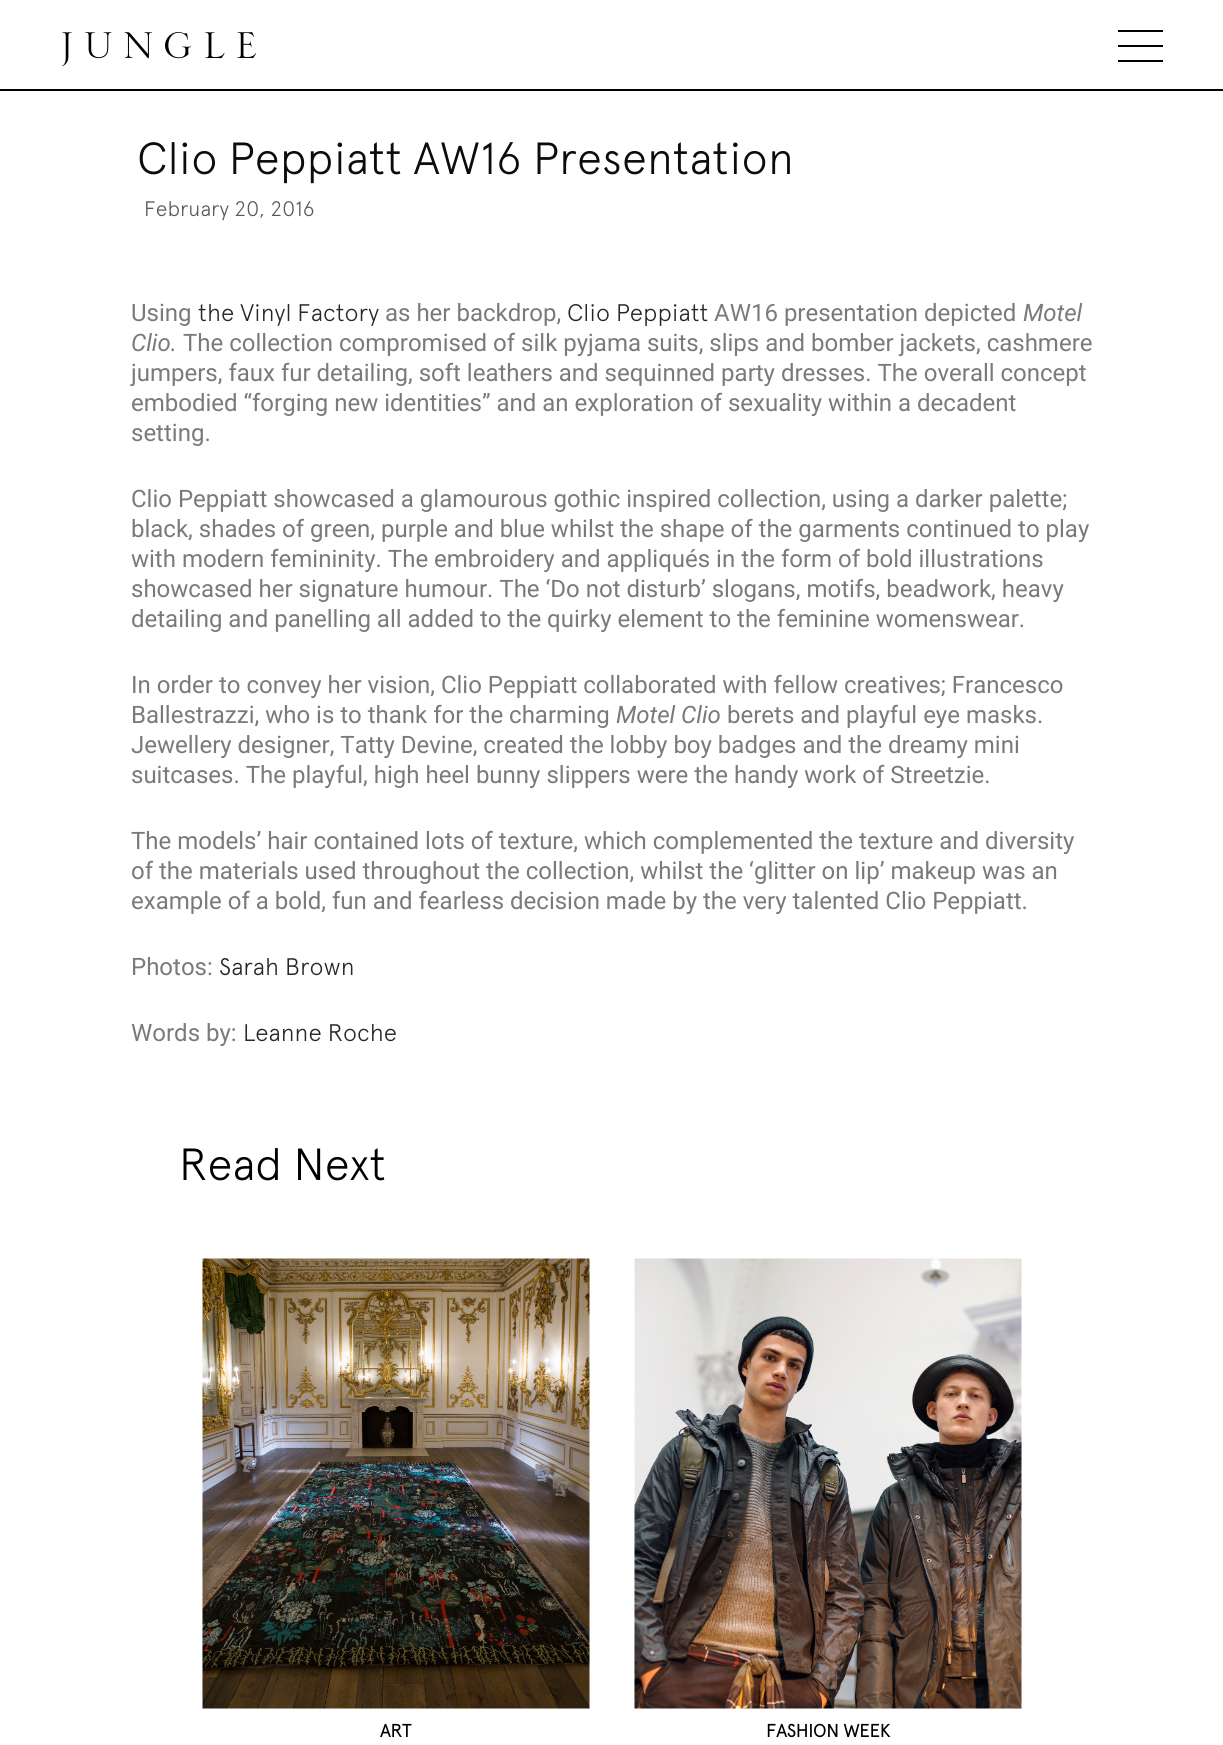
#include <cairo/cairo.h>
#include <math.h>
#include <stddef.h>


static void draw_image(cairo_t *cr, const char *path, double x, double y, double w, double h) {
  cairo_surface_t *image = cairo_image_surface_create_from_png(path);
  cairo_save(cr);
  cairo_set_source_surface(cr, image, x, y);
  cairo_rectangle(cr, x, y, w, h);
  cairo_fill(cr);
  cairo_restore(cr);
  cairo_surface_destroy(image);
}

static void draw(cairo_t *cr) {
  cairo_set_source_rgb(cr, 1, 1, 1);
  cairo_paint(cr);
  cairo_set_source_rgb(cr, 0, 0, 0);
  cairo_rectangle(cr, 0, 89, 1223, 2);
  cairo_fill(cr);
  draw_image(cr, "images/1.png", 62, 31, 195, 36);
  cairo_rectangle(cr, 1118, 30, 45, 2);
  cairo_fill(cr);
  cairo_rectangle(cr, 1118, 45, 45, 2);
  cairo_fill(cr);
  cairo_rectangle(cr, 1118, 60, 45, 2);
  cairo_fill(cr);
  draw_image(cr, "images/2.png", 202, 1258, 388, 451);
  draw_image(cr, "images/3.png", 634, 1258, 388, 451);
  cairo_select_font_face(cr, "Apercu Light", CAIRO_FONT_SLANT_NORMAL, CAIRO_FONT_WEIGHT_NORMAL);
  cairo_set_font_size(cr, 45);
  cairo_set_source_rgb(cr, 12 / 255.0, 12 / 255.0, 12 / 255.0);
  cairo_move_to(cr, 137, 174);
  cairo_show_text(cr, "Clio Peppiatt AW16 Presentation");
  cairo_select_font_face(cr, "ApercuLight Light", CAIRO_FONT_SLANT_NORMAL, CAIRO_FONT_WEIGHT_NORMAL);
  cairo_set_font_size(cr, 21);
  cairo_set_source_rgb(cr, 84 / 255.0, 89 / 255.0, 95 / 255.0);
  cairo_move_to(cr, 144, 216);
  cairo_show_text(cr, "February 20, 2016");
  cairo_select_font_face(cr, "Roboto", CAIRO_FONT_SLANT_NORMAL, CAIRO_FONT_WEIGHT_NORMAL);
  cairo_set_font_size(cr, 24);
  cairo_set_source_rgb(cr, 122 / 255.0, 122 / 255.0, 122 / 255.0);
  cairo_move_to(cr, 131, 321);
  cairo_show_text(cr, "Using");
  cairo_select_font_face(cr, "ApercuLight Light", CAIRO_FONT_SLANT_NORMAL, CAIRO_FONT_WEIGHT_NORMAL);
  cairo_set_source_rgb(cr, 39 / 255.0, 39 / 255.0, 39 / 255.0);
  cairo_move_to(cr, 198, 321);
  cairo_show_text(cr, "the Vinyl Factory");
  cairo_select_font_face(cr, "Roboto", CAIRO_FONT_SLANT_NORMAL, CAIRO_FONT_WEIGHT_NORMAL);
  cairo_set_source_rgb(cr, 122 / 255.0, 122 / 255.0, 122 / 255.0);
  cairo_move_to(cr, 385, 321);
  cairo_show_text(cr, "as her backdrop,");
  cairo_select_font_face(cr, "ApercuLight Light", CAIRO_FONT_SLANT_NORMAL, CAIRO_FONT_WEIGHT_NORMAL);
  cairo_set_source_rgb(cr, 39 / 255.0, 39 / 255.0, 39 / 255.0);
  cairo_move_to(cr, 567, 321);
  cairo_show_text(cr, "Clio Peppiatt");
  cairo_select_font_face(cr, "Roboto", CAIRO_FONT_SLANT_NORMAL, CAIRO_FONT_WEIGHT_NORMAL);
  cairo_set_source_rgb(cr, 122 / 255.0, 122 / 255.0, 122 / 255.0);
  cairo_move_to(cr, 714, 321);
  cairo_show_text(cr, "AW16 presentation depicted");
  cairo_select_font_face(cr, "Roboto", CAIRO_FONT_SLANT_ITALIC, CAIRO_FONT_WEIGHT_NORMAL);
  cairo_move_to(cr, 1023, 321);
  cairo_show_text(cr, "Motel");
  cairo_move_to(cr, 131, 351);
  cairo_show_text(cr, "Clio.");
  cairo_select_font_face(cr, "Roboto", CAIRO_FONT_SLANT_NORMAL, CAIRO_FONT_WEIGHT_NORMAL);
  cairo_move_to(cr, 183, 351);
  cairo_show_text(cr, "The collection compromised of silk pyjama suits, slips and bomber jackets, cashmere");
  cairo_move_to(cr, 131, 381);
  cairo_show_text(cr, "jumpers, faux fur detailing, soft leathers and sequinned party dresses. The overall concept");
  cairo_move_to(cr, 131, 411);
  cairo_show_text(cr, "embodied “forging new identities” and an exploration of sexuality within a decadent");
  cairo_move_to(cr, 131, 441);
  cairo_show_text(cr, "setting.");
  cairo_move_to(cr, 131, 507);
  cairo_show_text(cr, "Clio Peppiatt showcased a glamourous gothic inspired collection, using a darker palette;");
  cairo_move_to(cr, 131, 537);
  cairo_show_text(cr, "black, shades of green, purple and blue whilst the shape of the garments continued to play");
  cairo_move_to(cr, 131, 567);
  cairo_show_text(cr, "with modern femininity. The embroidery and appliqués in the form of bold illustrations");
  cairo_move_to(cr, 131, 597);
  cairo_show_text(cr, "showcased her signature humour. The ‘Do not disturb’ slogans, motifs, beadwork, heavy");
  cairo_move_to(cr, 131, 627);
  cairo_show_text(cr, "detailing and panelling all added to the quirky element to the feminine womenswear.");
  cairo_move_to(cr, 131, 693);
  cairo_show_text(cr, "In order to convey her vision, Clio Peppiatt collaborated with fellow creatives; Francesco");
  cairo_move_to(cr, 131, 723);
  cairo_show_text(cr, "Ballestrazzi, who is to thank for the charming");
  cairo_select_font_face(cr, "Roboto", CAIRO_FONT_SLANT_ITALIC, CAIRO_FONT_WEIGHT_NORMAL);
  cairo_move_to(cr, 616, 723);
  cairo_show_text(cr, "Motel Clio");
  cairo_select_font_face(cr, "Roboto", CAIRO_FONT_SLANT_NORMAL, CAIRO_FONT_WEIGHT_NORMAL);
  cairo_move_to(cr, 727, 723);
  cairo_show_text(cr, "berets and playful eye masks.");
  cairo_move_to(cr, 131, 753);
  cairo_show_text(cr, "Jewellery designer, Tatty Devine, created the lobby boy badges and the dreamy mini");
  cairo_move_to(cr, 131, 783);
  cairo_show_text(cr, "suitcases. The playful, high heel bunny slippers were the handy work of Streetzie.");
  cairo_move_to(cr, 131, 849);
  cairo_show_text(cr, "The models’ hair contained lots of texture, which complemented the texture and diversity");
  cairo_move_to(cr, 131, 879);
  cairo_show_text(cr, "of the materials used throughout the collection, whilst the ‘glitter on lip’ makeup was an");
  cairo_move_to(cr, 131, 909);
  cairo_show_text(cr, "example of a bold, fun and fearless decision made by the very talented Clio Peppiatt.");
  cairo_move_to(cr, 131, 975);
  cairo_show_text(cr, "Photos:");
  cairo_select_font_face(cr, "ApercuLight Light", CAIRO_FONT_SLANT_NORMAL, CAIRO_FONT_WEIGHT_NORMAL);
  cairo_set_source_rgb(cr, 39 / 255.0, 39 / 255.0, 39 / 255.0);
  cairo_move_to(cr, 219, 975);
  cairo_show_text(cr, "Sarah Brown");
  cairo_select_font_face(cr, "Roboto", CAIRO_FONT_SLANT_NORMAL, CAIRO_FONT_WEIGHT_NORMAL);
  cairo_set_source_rgb(cr, 122 / 255.0, 122 / 255.0, 122 / 255.0);
  cairo_move_to(cr, 131, 1041);
  cairo_show_text(cr, "Words by:");
  cairo_select_font_face(cr, "ApercuLight Light", CAIRO_FONT_SLANT_NORMAL, CAIRO_FONT_WEIGHT_NORMAL);
  cairo_set_source_rgb(cr, 39 / 255.0, 39 / 255.0, 39 / 255.0);
  cairo_move_to(cr, 243, 1041);
  cairo_show_text(cr, "Leanne Roche");
  cairo_set_font_size(cr, 45);
  cairo_set_source_rgb(cr, 0, 0, 0);
  cairo_move_to(cr, 179, 1180);
  cairo_show_text(cr, "Read Next");
  cairo_select_font_face(cr, "ApercuLight", CAIRO_FONT_SLANT_NORMAL, CAIRO_FONT_WEIGHT_BOLD);
  cairo_set_font_size(cr, 18);
  cairo_move_to(cr, 380, 1737);
  cairo_show_text(cr, "ART");
  cairo_move_to(cr, 766, 1737);
  cairo_show_text(cr, "FASHION WEEK");
}

int main(void) {
  cairo_surface_t *surface = cairo_image_surface_create(CAIRO_FORMAT_RGB24, 1223, 1745);
  cairo_t *cr = cairo_create(surface);
  cairo_font_options_t *options = cairo_font_options_create();
  cairo_font_options_set_hint_metrics(options, CAIRO_HINT_METRICS_OFF);
  cairo_font_options_set_hint_style(options, CAIRO_HINT_STYLE_NONE);
  cairo_set_font_options(cr, options);
  cairo_set_miter_limit(cr, 4);
  draw(cr);
  cairo_surface_write_to_png(surface, "out.png");
  cairo_font_options_destroy(options);
  cairo_destroy(cr);
  cairo_surface_destroy(surface);
  return 0;
}
